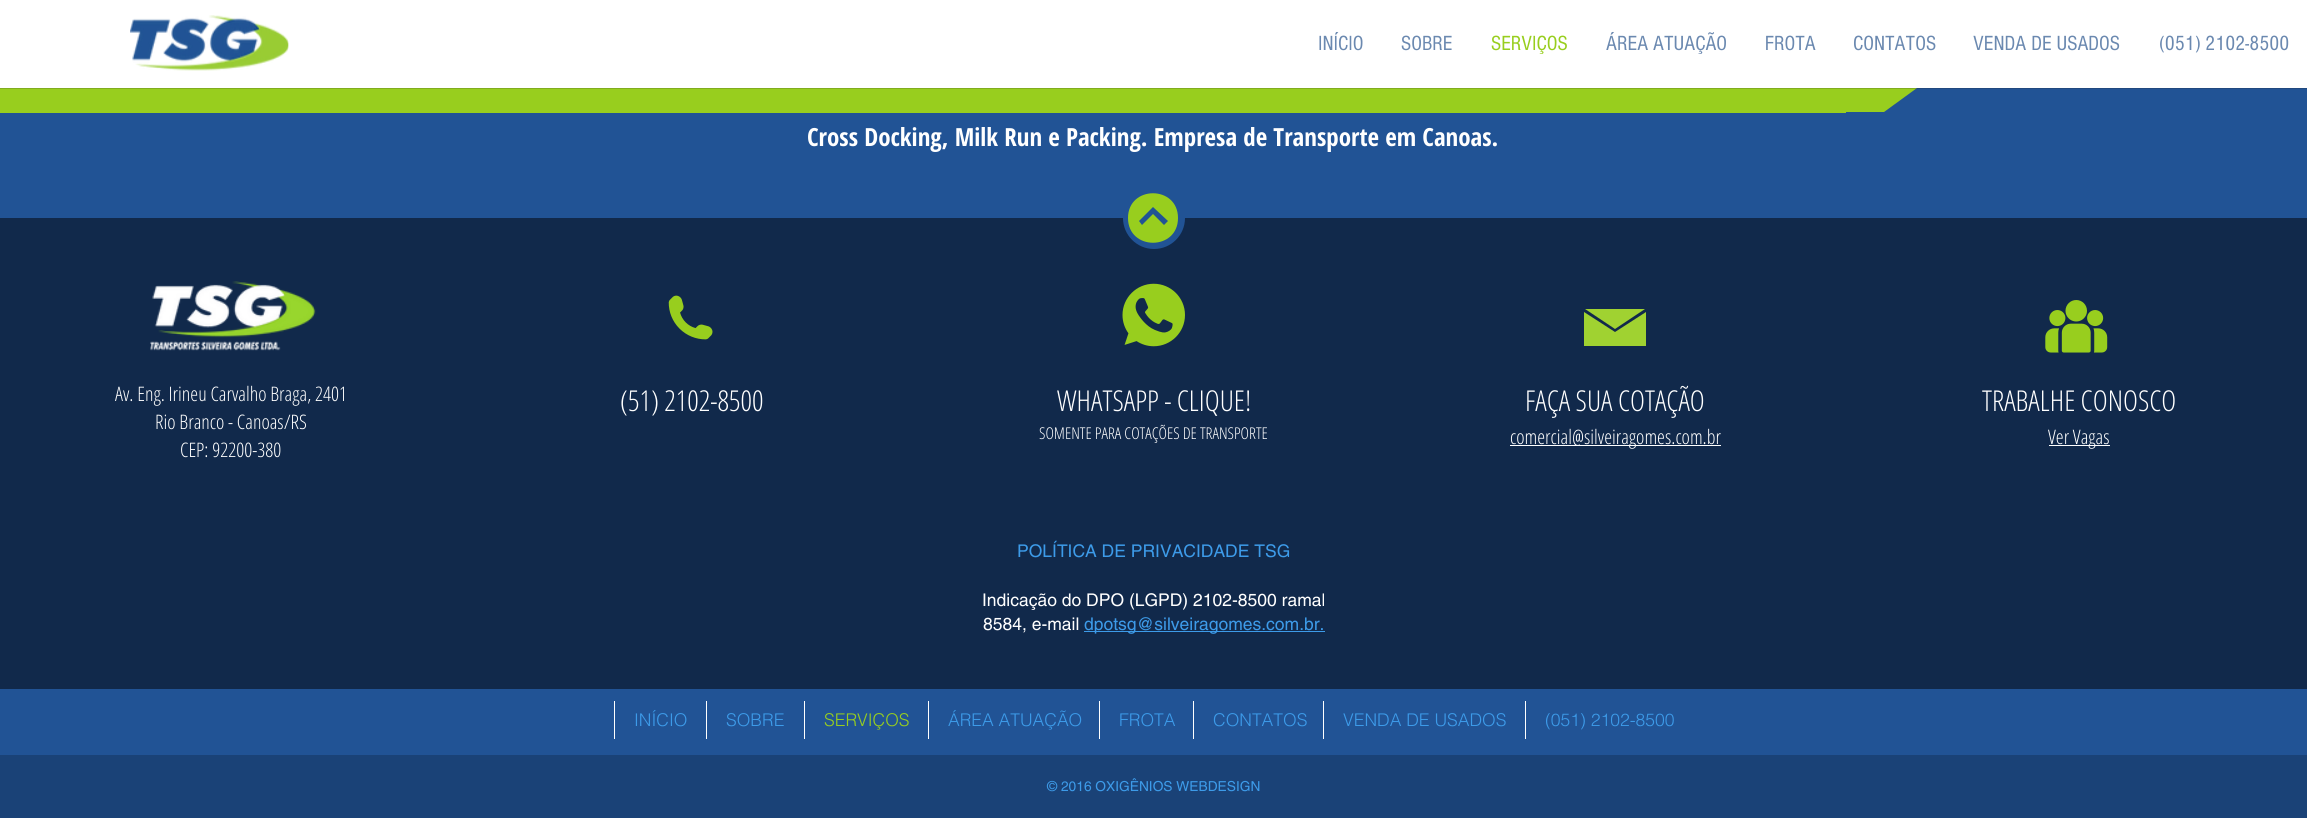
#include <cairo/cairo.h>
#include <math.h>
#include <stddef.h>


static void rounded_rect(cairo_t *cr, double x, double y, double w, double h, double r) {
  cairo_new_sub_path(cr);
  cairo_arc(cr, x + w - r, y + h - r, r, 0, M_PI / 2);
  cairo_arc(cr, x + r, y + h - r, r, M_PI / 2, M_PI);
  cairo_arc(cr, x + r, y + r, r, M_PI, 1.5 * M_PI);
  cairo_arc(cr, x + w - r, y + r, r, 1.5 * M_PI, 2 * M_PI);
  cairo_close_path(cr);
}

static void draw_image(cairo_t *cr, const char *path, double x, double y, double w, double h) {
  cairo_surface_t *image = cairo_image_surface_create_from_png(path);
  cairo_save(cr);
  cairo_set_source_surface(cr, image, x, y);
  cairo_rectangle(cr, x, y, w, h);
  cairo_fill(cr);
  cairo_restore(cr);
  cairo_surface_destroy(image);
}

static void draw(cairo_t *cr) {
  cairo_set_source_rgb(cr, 33 / 255.0, 83 / 255.0, 149 / 255.0);
  cairo_paint(cr);
  cairo_set_source_rgb(cr, 1, 1, 1);
  cairo_rectangle(cr, 0, 0, 2307, 88);
  cairo_fill(cr);
  draw_image(cr, "images/1.png", 130, 15, 159, 56);
  cairo_set_source_rgb(cr, 152 / 255.0, 206 / 255.0, 30 / 255.0);
  cairo_rectangle(cr, 0, 88, 1846, 25);
  cairo_fill(cr);
  cairo_new_path(cr);
  cairo_move_to(cr, 1754, 88);
  cairo_line_to(cr, 1917, 88);
  cairo_line_to(cr, 1884, 112);
  cairo_line_to(cr, 1787, 112);
  cairo_close_path(cr);
  cairo_fill(cr);
  cairo_set_source_rgba(cr, 36 / 255.0, 36 / 255.0, 36 / 255.0, 0.2);
  cairo_rectangle(cr, 0, 88, 2307, 1);
  cairo_fill(cr);
  cairo_set_source_rgb(cr, 17 / 255.0, 41 / 255.0, 75 / 255.0);
  cairo_rectangle(cr, 0, 218, 2307, 471);
  cairo_fill(cr);
  cairo_set_source_rgb(cr, 33 / 255.0, 83 / 255.0, 149 / 255.0);
  rounded_rect(cr, 1123, 186, 62, 63, 31);
  cairo_fill(cr);
  cairo_set_source_rgb(cr, 152 / 255.0, 206 / 255.0, 30 / 255.0);
  cairo_new_path(cr);
  cairo_move_to(cr, 1128, 218);
  cairo_curve_to(cr, 1128, 251, 1178, 251, 1178, 218);
  cairo_curve_to(cr, 1178, 185, 1128, 185, 1128, 218);
  cairo_close_path(cr);
  cairo_move_to(cr, 1168, 221);
  cairo_line_to(cr, 1164, 225);
  cairo_line_to(cr, 1153, 214);
  cairo_line_to(cr, 1142, 225);
  cairo_line_to(cr, 1139, 221);
  cairo_line_to(cr, 1153, 207);
  cairo_close_path(cr);
  cairo_fill(cr);
  draw_image(cr, "images/2.png", 150, 281, 166, 70);
  draw_image(cr, "images/3.png", 668, 295, 45, 45);
  draw_image(cr, "images/4.png", 1122, 283, 63, 64);
  cairo_set_source_rgb(cr, 160 / 255.0, 210 / 255.0, 49 / 255.0);
  cairo_new_path(cr);
  cairo_move_to(cr, 1615, 329);
  cairo_line_to(cr, 1585, 309);
  cairo_line_to(cr, 1645, 309);
  cairo_close_path(cr);
  cairo_move_to(cr, 1646, 312);
  cairo_line_to(cr, 1615, 332);
  cairo_line_to(cr, 1584, 312);
  cairo_line_to(cr, 1584, 346);
  cairo_line_to(cr, 1646, 346);
  cairo_close_path(cr);
  cairo_fill(cr);
  cairo_set_source_rgb(cr, 1, 1, 1);
  cairo_rectangle(cr, 1510, 445, 211, 1);
  cairo_fill(cr);
  draw_image(cr, "images/5.png", 2045, 300, 63, 53);
  cairo_rectangle(cr, 2049, 445, 61, 1);
  cairo_fill(cr);
  cairo_set_source_rgb(cr, 61 / 255.0, 155 / 255.0, 233 / 255.0);
  cairo_rectangle(cr, 1084, 631, 241, 1);
  cairo_fill(cr);
  cairo_set_source_rgb(cr, 1, 1, 1);
  cairo_rectangle(cr, 614, 701, 1, 38);
  cairo_fill(cr);
  cairo_rectangle(cr, 706, 701, 1, 38);
  cairo_fill(cr);
  cairo_rectangle(cr, 804, 701, 1, 38);
  cairo_fill(cr);
  cairo_rectangle(cr, 928, 701, 1, 38);
  cairo_fill(cr);
  cairo_rectangle(cr, 1099, 701, 1, 38);
  cairo_fill(cr);
  cairo_rectangle(cr, 1193, 701, 1, 38);
  cairo_fill(cr);
  cairo_rectangle(cr, 1323, 701, 1, 38);
  cairo_fill(cr);
  cairo_rectangle(cr, 1525, 701, 1, 38);
  cairo_fill(cr);
  cairo_set_source_rgb(cr, 26 / 255.0, 66 / 255.0, 119 / 255.0);
  cairo_rectangle(cr, 0, 755, 2307, 63);
  cairo_fill(cr);
  cairo_select_font_face(cr, "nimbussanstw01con", CAIRO_FONT_SLANT_NORMAL, CAIRO_FONT_WEIGHT_NORMAL);
  cairo_set_font_size(cr, 21.25);
  cairo_set_source_rgb(cr, 107 / 255.0, 137 / 255.0, 176 / 255.0);
  cairo_move_to(cr, 1318, 50);
  cairo_show_text(cr, "INÍCIO");
  cairo_move_to(cr, 1401, 50);
  cairo_show_text(cr, "SOBRE");
  cairo_set_source_rgb(cr, 152 / 255.0, 206 / 255.0, 30 / 255.0);
  cairo_move_to(cr, 1491, 50);
  cairo_show_text(cr, "SERVIÇOS");
  cairo_set_source_rgb(cr, 107 / 255.0, 137 / 255.0, 176 / 255.0);
  cairo_move_to(cr, 1606, 50);
  cairo_show_text(cr, "ÁREA ATUAÇÃO");
  cairo_move_to(cr, 1765, 50);
  cairo_show_text(cr, "FROTA");
  cairo_move_to(cr, 1853, 50);
  cairo_show_text(cr, "CONTATOS");
  cairo_move_to(cr, 1973, 50);
  cairo_show_text(cr, "VENDA DE USADOS");
  cairo_move_to(cr, 2159, 50);
  cairo_show_text(cr, "(051) 2102-8500");
  cairo_select_font_face(cr, "Open Sans Condensed", CAIRO_FONT_SLANT_NORMAL, CAIRO_FONT_WEIGHT_BOLD);
  cairo_set_font_size(cr, 25);
  cairo_set_source_rgb(cr, 1, 1, 1);
  cairo_move_to(cr, 807, 146);
  cairo_show_text(cr, "Cross Docking, Milk Run e Packing. Empresa de Transporte em Canoas.");
  cairo_select_font_face(cr, "Open Sans Condensed Light", CAIRO_FONT_SLANT_NORMAL, CAIRO_FONT_WEIGHT_NORMAL);
  cairo_set_font_size(cr, 20);
  cairo_move_to(cr, 115, 401);
  cairo_show_text(cr, "Av. Eng. Irineu Carvalho Braga, 2401");
  cairo_move_to(cr, 155, 429);
  cairo_show_text(cr, "Rio Branco - Canoas/RS");
  cairo_move_to(cr, 180, 457);
  cairo_show_text(cr, "CEP: 92200-380");
  cairo_set_font_size(cr, 28.75);
  cairo_move_to(cr, 620, 411);
  cairo_show_text(cr, "(51) 2102-8500");
  cairo_move_to(cr, 1057, 411);
  cairo_show_text(cr, "WHATSAPP - CLIQUE!");
  cairo_set_font_size(cr, 16.25);
  cairo_move_to(cr, 1039, 439);
  cairo_show_text(cr, "SOMENTE PARA COTAÇÕES DE TRANSPORTE");
  cairo_set_font_size(cr, 28.75);
  cairo_move_to(cr, 1525, 411);
  cairo_show_text(cr, "FAÇA SUA COTAÇÃO");
  cairo_set_font_size(cr, 20);
  cairo_move_to(cr, 1510, 444);
  cairo_show_text(cr, "comercial@silveiragomes.com.br");
  cairo_set_font_size(cr, 28.75);
  cairo_move_to(cr, 1982, 411);
  cairo_show_text(cr, "TRABALHE CONOSCO");
  cairo_set_font_size(cr, 20);
  cairo_move_to(cr, 2048, 444);
  cairo_show_text(cr, "Ver Vagas");
  cairo_select_font_face(cr, "helvetica", CAIRO_FONT_SLANT_NORMAL, CAIRO_FONT_WEIGHT_NORMAL);
  cairo_set_font_size(cr, 17.5);
  cairo_set_source_rgb(cr, 61 / 255.0, 155 / 255.0, 233 / 255.0);
  cairo_move_to(cr, 1017, 557);
  cairo_show_text(cr, "POLÍTICA DE PRIVACIDADE TSG");
  cairo_set_source_rgb(cr, 1, 1, 1);
  cairo_move_to(cr, 982, 606);
  cairo_show_text(cr, "Indicação do DPO (LGPD) 2102-8500 ramal");
  cairo_move_to(cr, 983, 630);
  cairo_show_text(cr, "8584, e-mail");
  cairo_set_source_rgb(cr, 61 / 255.0, 155 / 255.0, 233 / 255.0);
  cairo_move_to(cr, 1084, 630);
  cairo_show_text(cr, "dpotsg@silveiragomes.com.br.");
  cairo_select_font_face(cr, "helvetica Light", CAIRO_FONT_SLANT_NORMAL, CAIRO_FONT_WEIGHT_NORMAL);
  cairo_move_to(cr, 634, 726);
  cairo_show_text(cr, "INÍCIO");
  cairo_move_to(cr, 726, 726);
  cairo_show_text(cr, "SOBRE");
  cairo_set_source_rgb(cr, 152 / 255.0, 206 / 255.0, 30 / 255.0);
  cairo_move_to(cr, 824, 726);
  cairo_show_text(cr, "SERVIÇOS");
  cairo_set_source_rgb(cr, 61 / 255.0, 155 / 255.0, 233 / 255.0);
  cairo_move_to(cr, 948, 726);
  cairo_show_text(cr, "ÁREA ATUAÇÃO");
  cairo_move_to(cr, 1119, 726);
  cairo_show_text(cr, "FROTA");
  cairo_move_to(cr, 1213, 726);
  cairo_show_text(cr, "CONTATOS");
  cairo_move_to(cr, 1343, 726);
  cairo_show_text(cr, "VENDA DE USADOS");
  cairo_move_to(cr, 1545, 726);
  cairo_show_text(cr, "(051) 2102-8500");
  cairo_select_font_face(cr, "helvetica", CAIRO_FONT_SLANT_NORMAL, CAIRO_FONT_WEIGHT_NORMAL);
  cairo_set_font_size(cr, 13.75);
  cairo_move_to(cr, 1047, 791);
  cairo_show_text(cr, "© 2016 OXIGÊNIOS WEBDESIGN");
}

int main(void) {
  cairo_surface_t *surface = cairo_image_surface_create(CAIRO_FORMAT_RGB24, 2307, 818);
  cairo_t *cr = cairo_create(surface);
  cairo_font_options_t *options = cairo_font_options_create();
  cairo_font_options_set_hint_metrics(options, CAIRO_HINT_METRICS_OFF);
  cairo_font_options_set_hint_style(options, CAIRO_HINT_STYLE_NONE);
  cairo_set_font_options(cr, options);
  cairo_set_miter_limit(cr, 4);
  draw(cr);
  cairo_surface_write_to_png(surface, "out.png");
  cairo_font_options_destroy(options);
  cairo_destroy(cr);
  cairo_surface_destroy(surface);
  return 0;
}
